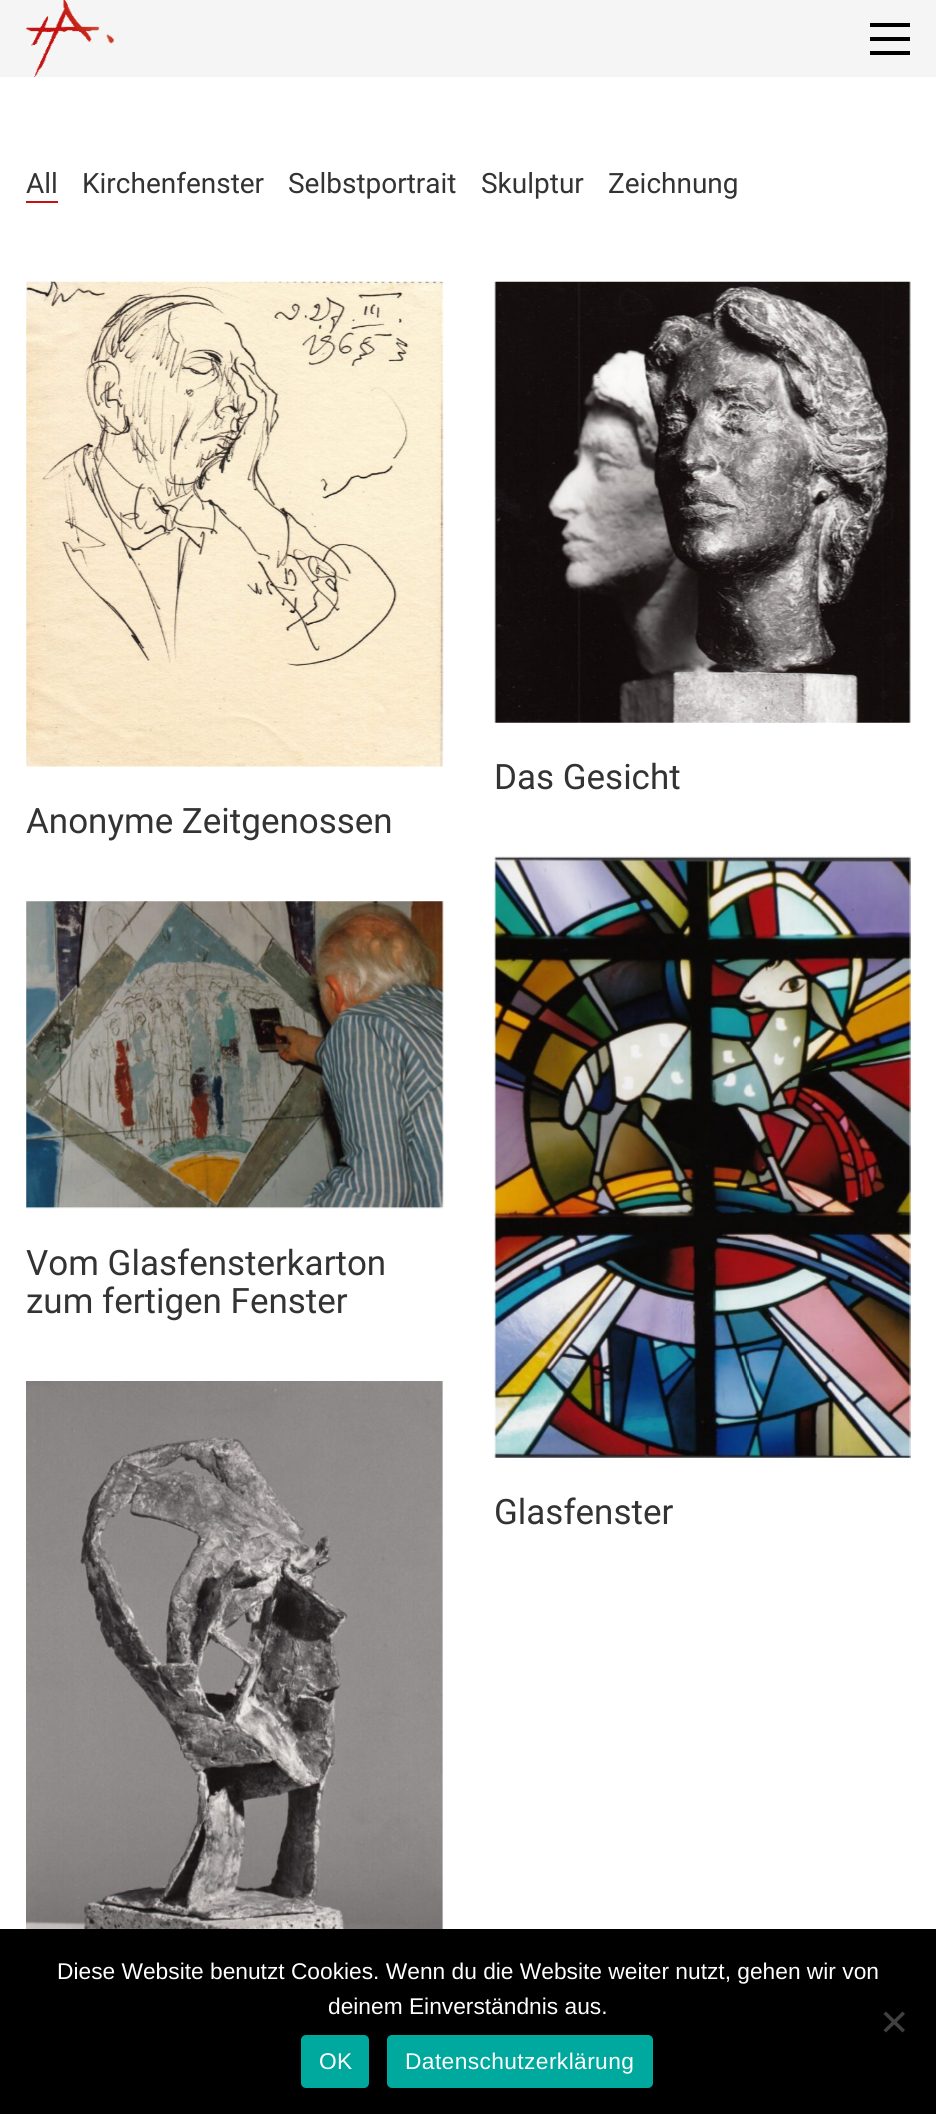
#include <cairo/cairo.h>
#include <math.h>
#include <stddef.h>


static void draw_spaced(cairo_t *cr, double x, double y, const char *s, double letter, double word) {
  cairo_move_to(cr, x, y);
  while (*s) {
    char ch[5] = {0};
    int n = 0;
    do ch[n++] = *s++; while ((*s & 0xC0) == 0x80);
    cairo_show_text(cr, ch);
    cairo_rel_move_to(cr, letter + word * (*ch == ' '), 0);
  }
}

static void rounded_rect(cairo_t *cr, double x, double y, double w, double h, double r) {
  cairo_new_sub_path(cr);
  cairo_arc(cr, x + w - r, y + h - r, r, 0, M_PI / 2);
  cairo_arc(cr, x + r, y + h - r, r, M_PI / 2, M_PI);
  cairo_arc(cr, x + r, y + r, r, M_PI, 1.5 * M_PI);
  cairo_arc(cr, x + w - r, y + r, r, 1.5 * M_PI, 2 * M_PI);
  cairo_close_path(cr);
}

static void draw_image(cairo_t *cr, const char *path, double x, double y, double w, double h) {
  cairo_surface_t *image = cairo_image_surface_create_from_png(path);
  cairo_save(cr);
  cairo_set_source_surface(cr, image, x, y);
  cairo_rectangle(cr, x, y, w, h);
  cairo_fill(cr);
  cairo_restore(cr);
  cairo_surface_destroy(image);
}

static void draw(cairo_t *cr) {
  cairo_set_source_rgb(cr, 1, 1, 1);
  cairo_paint(cr);
  cairo_set_source_rgb(cr, 245 / 255.0, 245 / 255.0, 245 / 255.0);
  cairo_rectangle(cr, 0, 0, 936, 77);
  cairo_fill(cr);
  draw_image(cr, "images/1.png", 26, 0, 88, 77);
  cairo_set_source_rgb(cr, 0, 0, 0);
  cairo_rectangle(cr, 870, 23, 40, 4);
  cairo_fill(cr);
  cairo_rectangle(cr, 870, 37, 40, 4);
  cairo_fill(cr);
  cairo_rectangle(cr, 870, 51, 40, 4);
  cairo_fill(cr);
  cairo_set_source_rgb(cr, 196 / 255.0, 18 / 255.0, 18 / 255.0);
  cairo_rectangle(cr, 26, 201, 32, 2);
  cairo_fill(cr);
  draw_image(cr, "images/2.png", 494, 281, 417, 442);
  draw_image(cr, "images/3.png", 26, 281, 418, 486);
  draw_image(cr, "images/4.png", 26, 901, 418, 308);
  draw_image(cr, "images/5.png", 26, 1381, 417, 548);
  draw_image(cr, "images/6.png", 494, 856, 417, 602);
  cairo_set_source_rgb(cr, 0, 0, 0);
  cairo_rectangle(cr, 0, 1929, 936, 185);
  cairo_fill(cr);
  cairo_set_source_rgb(cr, 64 / 255.0, 64 / 255.0, 64 / 255.0);
  cairo_new_path(cr);
  cairo_move_to(cr, 902.5, 2011.5);
  cairo_line_to(cr, 905, 2014);
  cairo_line_to(cr, 886, 2032.5);
  cairo_line_to(cr, 883.5, 2030);
  cairo_close_path(cr);
  cairo_fill(cr);
  cairo_new_path(cr);
  cairo_move_to(cr, 883.5, 2014);
  cairo_line_to(cr, 886, 2011.5);
  cairo_line_to(cr, 905, 2030);
  cairo_line_to(cr, 902.5, 2032.5);
  cairo_close_path(cr);
  cairo_fill(cr);
  cairo_set_source_rgb(cr, 0, 169 / 255.0, 157 / 255.0);
  rounded_rect(cr, 301, 2035, 68, 53, 5);
  cairo_fill(cr);
  rounded_rect(cr, 387, 2035, 266, 53, 5);
  cairo_fill(cr);
  cairo_select_font_face(cr, "Roboto", CAIRO_FONT_SLANT_NORMAL, CAIRO_FONT_WEIGHT_NORMAL);
  cairo_set_font_size(cr, 28);
  cairo_set_source_rgb(cr, 51 / 255.0, 51 / 255.0, 51 / 255.0);
  cairo_move_to(cr, 26, 193);
  cairo_show_text(cr, "All");
  cairo_move_to(cr, 82, 193);
  cairo_show_text(cr, "Kirchenfenster");
  cairo_move_to(cr, 288, 193);
  cairo_show_text(cr, "Selbstportrait");
  cairo_move_to(cr, 481, 193);
  cairo_show_text(cr, "Skulptur");
  cairo_move_to(cr, 608, 193);
  cairo_show_text(cr, "Zeichnung");
  cairo_set_font_size(cr, 35);
  cairo_move_to(cr, 494, 789);
  cairo_show_text(cr, "Das Gesicht");
  cairo_move_to(cr, 26, 833);
  cairo_show_text(cr, "Anonyme Zeitgenossen");
  cairo_move_to(cr, 26, 1275);
  cairo_show_text(cr, "Vom Glasfensterkarton");
  cairo_move_to(cr, 26, 1313);
  cairo_show_text(cr, "zum fertigen Fenster");
  cairo_move_to(cr, 494, 1524);
  cairo_show_text(cr, "Glasfenster");
  cairo_select_font_face(cr, "Liberation Sans", CAIRO_FONT_SLANT_NORMAL, CAIRO_FONT_WEIGHT_NORMAL);
  cairo_set_font_size(cr, 22.75);
  cairo_set_source_rgb(cr, 1, 1, 1);
  cairo_move_to(cr, 57, 1979);
  cairo_show_text(cr, "Diese Website benutzt Cookies. Wenn du die Website weiter nutzt, gehen wir von");
  cairo_move_to(cr, 328, 2014);
  cairo_show_text(cr, "deinem Einverständnis aus.");
  draw_spaced(cr, 319, 2069, "OK", 0.4, 0);
  draw_spaced(cr, 405, 2069, "Datenschutzerklärung", 0.4, 0);
}

int main(void) {
  cairo_surface_t *surface = cairo_image_surface_create(CAIRO_FORMAT_RGB24, 936, 2114);
  cairo_t *cr = cairo_create(surface);
  cairo_font_options_t *options = cairo_font_options_create();
  cairo_font_options_set_hint_metrics(options, CAIRO_HINT_METRICS_OFF);
  cairo_font_options_set_hint_style(options, CAIRO_HINT_STYLE_NONE);
  cairo_set_font_options(cr, options);
  cairo_set_miter_limit(cr, 4);
  draw(cr);
  cairo_surface_write_to_png(surface, "out.png");
  cairo_font_options_destroy(options);
  cairo_destroy(cr);
  cairo_surface_destroy(surface);
  return 0;
}
